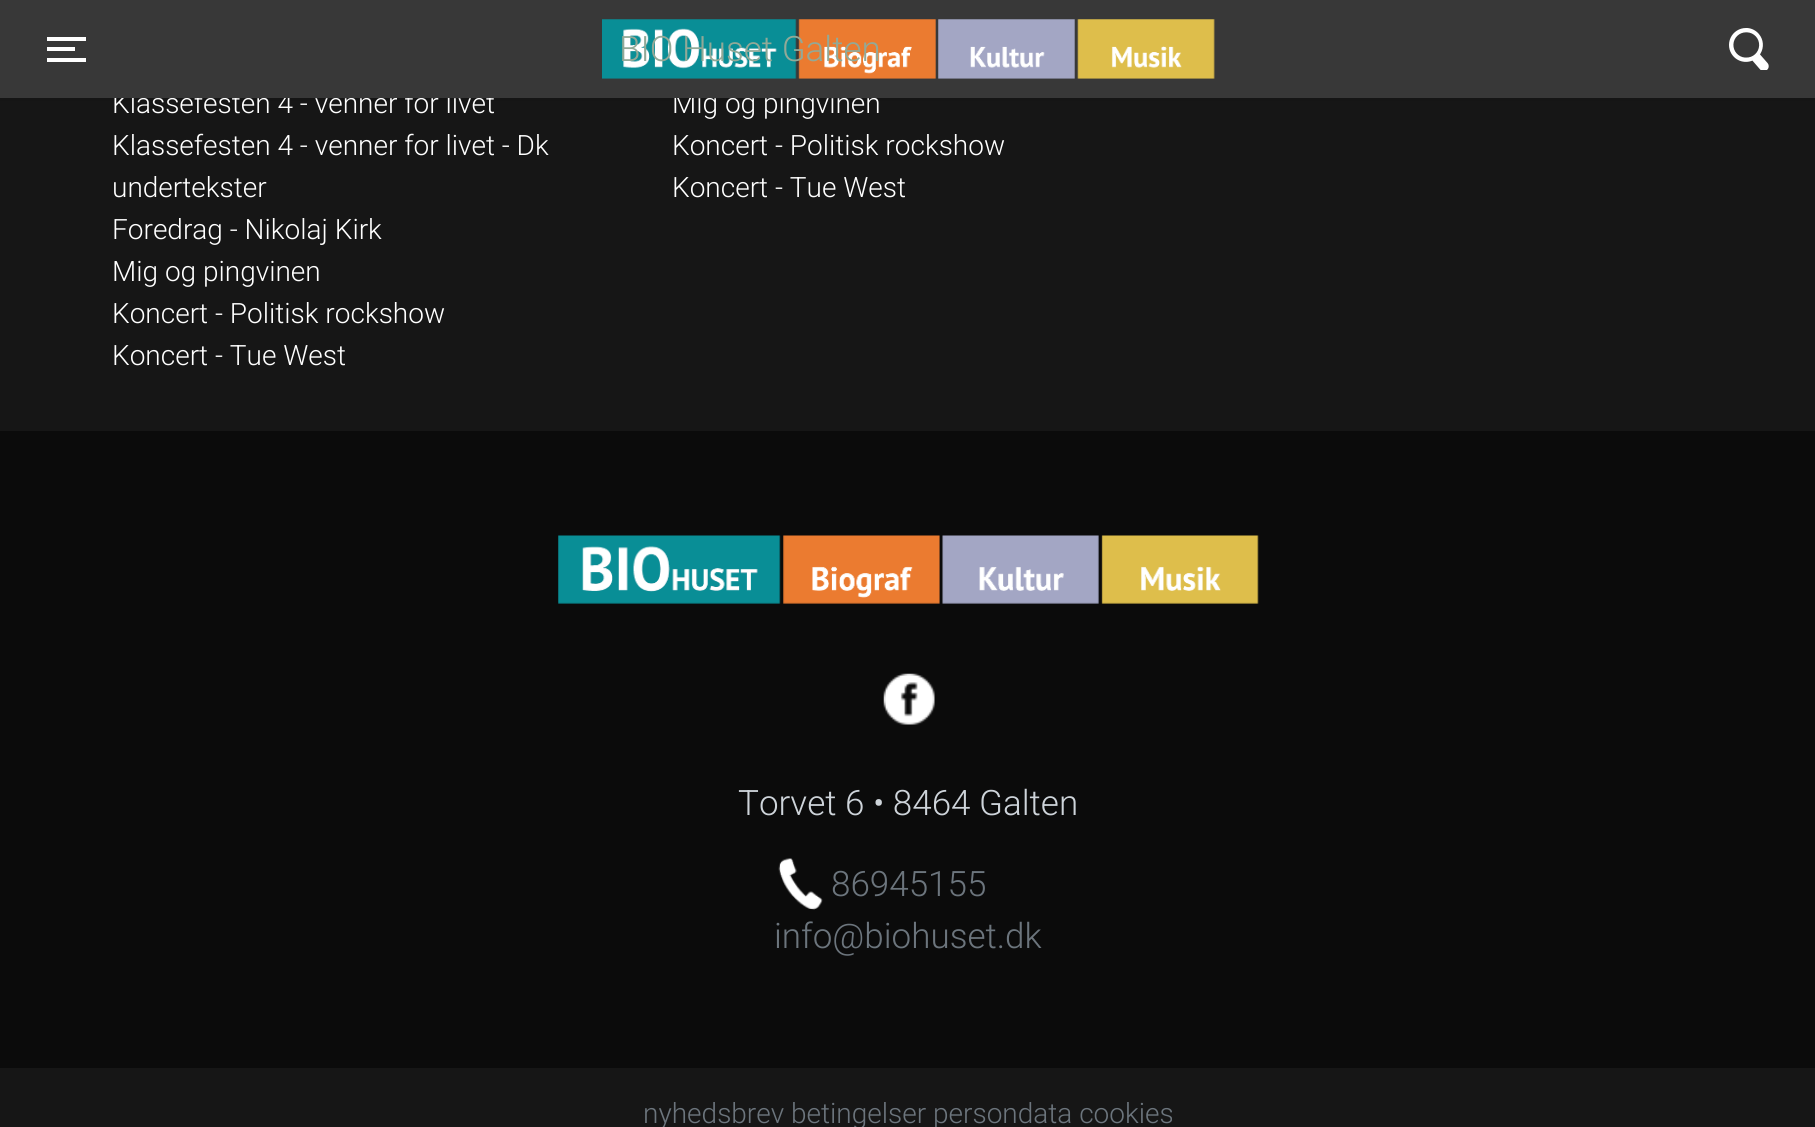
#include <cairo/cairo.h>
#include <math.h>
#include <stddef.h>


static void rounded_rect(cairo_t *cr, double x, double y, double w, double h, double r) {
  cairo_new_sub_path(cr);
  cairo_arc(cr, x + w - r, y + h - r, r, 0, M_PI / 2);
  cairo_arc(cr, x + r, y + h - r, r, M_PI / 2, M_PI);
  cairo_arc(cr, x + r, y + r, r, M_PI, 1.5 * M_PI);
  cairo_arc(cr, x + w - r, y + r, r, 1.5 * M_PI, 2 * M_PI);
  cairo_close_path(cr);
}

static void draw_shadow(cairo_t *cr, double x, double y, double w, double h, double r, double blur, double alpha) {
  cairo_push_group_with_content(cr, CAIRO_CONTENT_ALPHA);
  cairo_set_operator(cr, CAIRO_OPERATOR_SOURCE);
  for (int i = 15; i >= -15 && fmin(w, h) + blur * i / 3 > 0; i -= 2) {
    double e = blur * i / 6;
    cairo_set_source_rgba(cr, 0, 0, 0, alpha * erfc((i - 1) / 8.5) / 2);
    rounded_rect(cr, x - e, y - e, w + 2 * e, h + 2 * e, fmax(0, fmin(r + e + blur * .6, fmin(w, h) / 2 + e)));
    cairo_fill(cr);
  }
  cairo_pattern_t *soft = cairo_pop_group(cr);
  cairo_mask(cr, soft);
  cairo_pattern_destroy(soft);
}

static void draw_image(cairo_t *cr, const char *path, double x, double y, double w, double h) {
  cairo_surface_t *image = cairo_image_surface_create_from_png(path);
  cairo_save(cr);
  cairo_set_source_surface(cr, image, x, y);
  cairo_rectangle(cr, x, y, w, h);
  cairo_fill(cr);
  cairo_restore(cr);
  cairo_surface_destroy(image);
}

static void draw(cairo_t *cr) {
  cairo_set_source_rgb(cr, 22 / 255.0, 22 / 255.0, 22 / 255.0);
  cairo_paint(cr);
  cairo_set_source_rgb(cr, 0, 0, 0);
  draw_shadow(cr, 0, 4, 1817, 96, 0, 3.5, 0.07);
  cairo_set_source_rgb(cr, 11 / 255.0, 11 / 255.0, 11 / 255.0);
  cairo_rectangle(cr, 0, 431, 1815, 637);
  cairo_fill(cr);
  draw_image(cr, "images/3.png", 558, 535, 701, 69);
  draw_image(cr, "images/4.png", 883, 673, 52, 52);
  draw_image(cr, "images/5.png", 778, 858, 45, 52);
  cairo_select_font_face(cr, "Roboto Light", CAIRO_FONT_SLANT_NORMAL, CAIRO_FONT_WEIGHT_NORMAL);
  cairo_set_font_size(cr, 28);
  cairo_set_source_rgb(cr, 1, 1, 1);
  cairo_move_to(cr, 112, 113);
  cairo_show_text(cr, "Klassefesten 4 - venner for livet");
  cairo_move_to(cr, 112, 155);
  cairo_show_text(cr, "Klassefesten 4 - venner for livet - Dk");
  cairo_move_to(cr, 112, 197);
  cairo_show_text(cr, "undertekster");
  cairo_move_to(cr, 112, 239);
  cairo_show_text(cr, "Foredrag - Nikolaj Kirk");
  cairo_move_to(cr, 112, 281);
  cairo_show_text(cr, "Mig og pingvinen");
  cairo_move_to(cr, 112, 323);
  cairo_show_text(cr, "Koncert - Politisk rockshow");
  cairo_move_to(cr, 112, 365);
  cairo_show_text(cr, "Koncert - Tue West");
  cairo_move_to(cr, 672, 113);
  cairo_show_text(cr, "Mig og pingvinen");
  cairo_set_source_rgb(cr, 56 / 255.0, 56 / 255.0, 56 / 255.0);
  cairo_rectangle(cr, 0, 0, 1815, 98);
  cairo_fill(cr);
  cairo_set_source_rgb(cr, 1, 1, 1);
  cairo_rectangle(cr, 47, 58, 39, 4);
  cairo_fill(cr);
  cairo_rectangle(cr, 47, 47, 28, 4);
  cairo_fill(cr);
  cairo_rectangle(cr, 47, 37, 39, 4);
  cairo_fill(cr);
  draw_image(cr, "images/2.png", 1729, 28, 40, 42);
  draw_image(cr, "images/1.png", 602, 19, 613, 60);
  cairo_set_font_size(cr, 35);
  cairo_set_source_rgb(cr, 146 / 255.0, 169 / 255.0, 151 / 255.0);
  cairo_move_to(cr, 619, 61);
  cairo_show_text(cr, "BIO Huset Galten");
  cairo_set_font_size(cr, 28);
  cairo_set_source_rgb(cr, 1, 1, 1);
  cairo_move_to(cr, 672, 155);
  cairo_show_text(cr, "Koncert - Politisk rockshow");
  cairo_move_to(cr, 672, 197);
  cairo_show_text(cr, "Koncert - Tue West");
  cairo_set_font_size(cr, 35);
  cairo_set_source_rgb(cr, 206 / 255.0, 212 / 255.0, 218 / 255.0);
  cairo_move_to(cr, 738, 815);
  cairo_show_text(cr, "Torvet 6 • 8464 Galten");
  cairo_set_source_rgb(cr, 108 / 255.0, 117 / 255.0, 125 / 255.0);
  cairo_move_to(cr, 831, 896);
  cairo_show_text(cr, "86945155");
  cairo_move_to(cr, 774, 948);
  cairo_show_text(cr, "info@biohuset.dk");
  cairo_set_font_size(cr, 28);
  cairo_move_to(cr, 643, 1123);
  cairo_show_text(cr, "nyhedsbrev betingelser persondata cookies");
}

int main(void) {
  cairo_surface_t *surface = cairo_image_surface_create(CAIRO_FORMAT_RGB24, 1815, 1127);
  cairo_t *cr = cairo_create(surface);
  cairo_font_options_t *options = cairo_font_options_create();
  cairo_font_options_set_hint_metrics(options, CAIRO_HINT_METRICS_OFF);
  cairo_font_options_set_hint_style(options, CAIRO_HINT_STYLE_NONE);
  cairo_set_font_options(cr, options);
  cairo_set_miter_limit(cr, 4);
  draw(cr);
  cairo_surface_write_to_png(surface, "out.png");
  cairo_font_options_destroy(options);
  cairo_destroy(cr);
  cairo_surface_destroy(surface);
  return 0;
}
